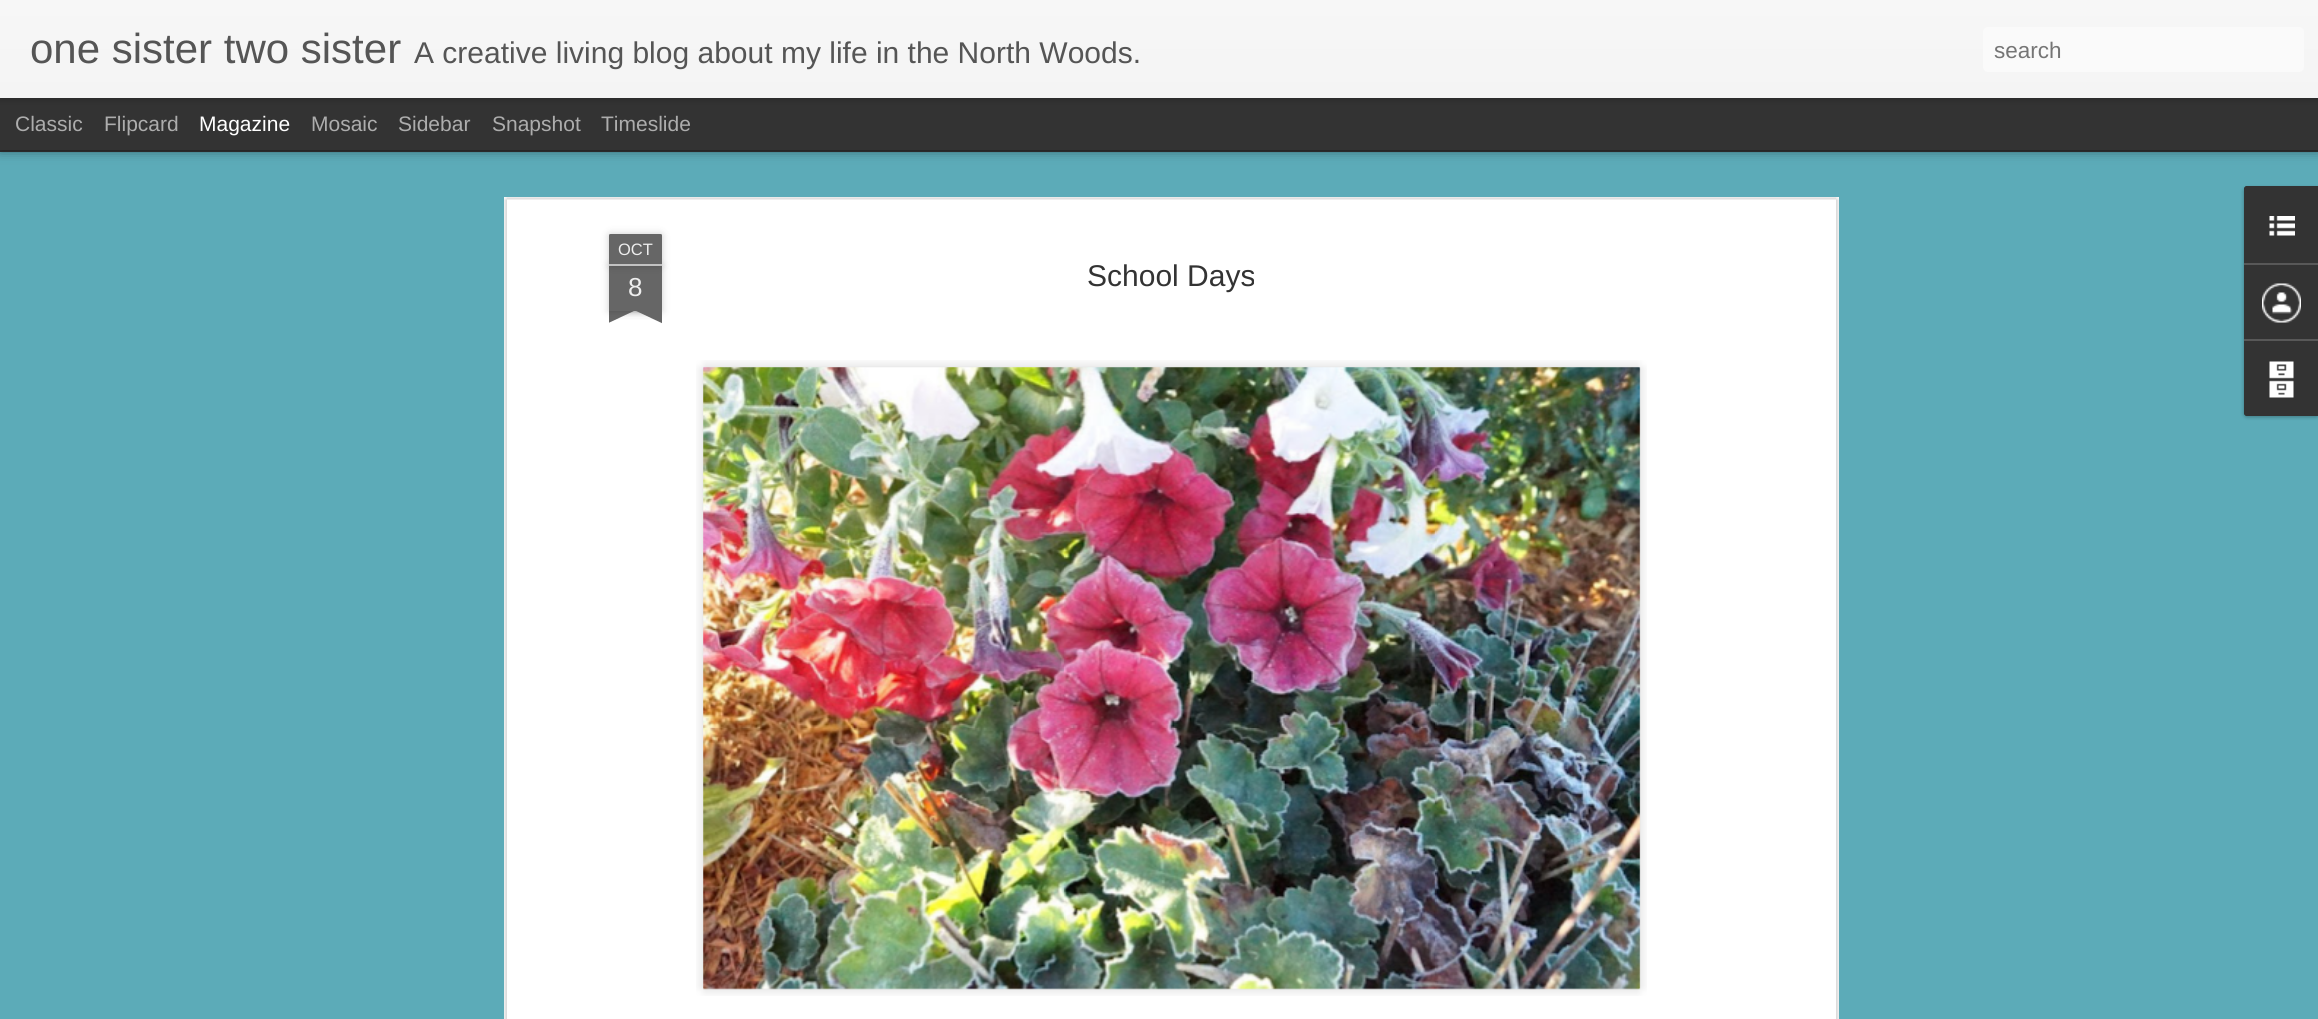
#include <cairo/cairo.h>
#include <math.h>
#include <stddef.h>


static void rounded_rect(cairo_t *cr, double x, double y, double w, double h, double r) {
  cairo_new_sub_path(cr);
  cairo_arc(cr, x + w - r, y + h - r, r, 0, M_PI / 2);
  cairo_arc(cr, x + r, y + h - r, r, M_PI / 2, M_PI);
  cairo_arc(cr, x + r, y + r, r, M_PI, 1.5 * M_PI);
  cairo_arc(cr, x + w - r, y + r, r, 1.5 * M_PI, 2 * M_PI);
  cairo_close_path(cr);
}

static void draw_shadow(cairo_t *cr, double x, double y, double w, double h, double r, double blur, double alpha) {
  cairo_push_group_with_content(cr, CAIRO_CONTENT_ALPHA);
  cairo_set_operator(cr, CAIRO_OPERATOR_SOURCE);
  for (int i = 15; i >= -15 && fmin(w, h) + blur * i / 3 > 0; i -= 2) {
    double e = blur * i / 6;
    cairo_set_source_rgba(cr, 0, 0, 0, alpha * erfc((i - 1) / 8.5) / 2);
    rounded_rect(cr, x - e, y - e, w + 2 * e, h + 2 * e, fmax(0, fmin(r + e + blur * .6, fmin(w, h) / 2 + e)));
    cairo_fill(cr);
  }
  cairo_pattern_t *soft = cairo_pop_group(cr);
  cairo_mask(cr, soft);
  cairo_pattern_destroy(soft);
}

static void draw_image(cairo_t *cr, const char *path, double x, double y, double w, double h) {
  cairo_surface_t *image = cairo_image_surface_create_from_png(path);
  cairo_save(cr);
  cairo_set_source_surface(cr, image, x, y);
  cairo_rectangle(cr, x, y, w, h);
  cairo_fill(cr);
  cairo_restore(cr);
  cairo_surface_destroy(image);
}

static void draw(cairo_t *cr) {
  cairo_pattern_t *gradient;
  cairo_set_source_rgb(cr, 51 / 255.0, 51 / 255.0, 51 / 255.0);
  cairo_paint(cr);
  cairo_set_source_rgb(cr, 92 / 255.0, 171 / 255.0, 184 / 255.0);
  cairo_rectangle(cr, 0, 152, 2318, 867);
  cairo_fill(cr);
  cairo_set_source_rgb(cr, 0, 0, 0);
  draw_shadow(cr, 0, 98, 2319, 52, 0, 6, 0.5);
  cairo_set_source_rgb(cr, 51 / 255.0, 51 / 255.0, 51 / 255.0);
  cairo_rectangle(cr, 0, 98, 2318, 52);
  cairo_fill(cr);
  cairo_set_source_rgb(cr, 0, 0, 0);
  draw_shadow(cr, 0, 0, 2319, 98, 0, 4, 0.3);
  gradient = cairo_pattern_create_linear(0, 0, 0, 98);
  cairo_pattern_add_color_stop_rgba(gradient, 0, 247 / 255.0, 247 / 255.0, 247 / 255.0, 1);
  cairo_pattern_add_color_stop_rgba(gradient, 1, 244 / 255.0, 244 / 255.0, 244 / 255.0, 1);
  cairo_set_source(cr, gradient);
  cairo_pattern_destroy(gradient);
  cairo_rectangle(cr, 0, 0, 2318, 98);
  cairo_fill(cr);
  cairo_set_source_rgb(cr, 250 / 255.0, 250 / 255.0, 250 / 255.0);
  rounded_rect(cr, 1983, 27, 321, 45, 5);
  cairo_fill(cr);
  cairo_set_source_rgb(cr, 1, 1, 1);
  cairo_rectangle(cr, 504, 197, 1335, 822);
  cairo_fill(cr);
  draw_image(cr, "images/1.png", 504, 197, 1335, 822);
  cairo_set_source_rgb(cr, 0, 0, 0);
  draw_shadow(cr, 609, 266, 53, 45, 0, 4, 0.2);
  cairo_set_source_rgb(cr, 102 / 255.0, 102 / 255.0, 102 / 255.0);
  cairo_rectangle(cr, 609, 266, 53, 45);
  cairo_fill(cr);
  cairo_set_source_rgb(cr, 0, 0, 0);
  draw_shadow(cr, 609, 234, 53, 32, 1.5, 4, 0.2);
  cairo_set_source_rgb(cr, 102 / 255.0, 102 / 255.0, 102 / 255.0);
  cairo_new_path(cr);
  cairo_move_to(cr, 610.5, 234);
  cairo_line_to(cr, 660.5, 234);
  cairo_curve_to(cr, 661.5, 234, 662, 234.5, 662, 235.5);
  cairo_line_to(cr, 662, 266);
  cairo_line_to(cr, 609, 266);
  cairo_line_to(cr, 609, 235.5);
  cairo_curve_to(cr, 609, 234.5, 609.5, 234, 610.5, 234);
  cairo_close_path(cr);
  cairo_fill(cr);
  cairo_set_source_rgb(cr, 194 / 255.0, 194 / 255.0, 194 / 255.0);
  cairo_rectangle(cr, 609, 264, 53, 2);
  cairo_fill(cr);
  cairo_save(cr);
  cairo_rectangle(cr, 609, 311, 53, 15);
  cairo_clip(cr);
  cairo_set_source_rgb(cr, 0, 0, 0);
  draw_shadow(cr, 596, 296, 75, 15, 0, 4, 0.2);
  cairo_restore(cr);
  cairo_save(cr);
  cairo_rectangle(cr, 609, 311, 53, 15);
  cairo_clip(cr);
  cairo_set_source_rgb(cr, 102 / 255.0, 102 / 255.0, 102 / 255.0);
  cairo_new_path(cr);
  cairo_move_to(cr, 596, 312);
  cairo_line_to(cr, 664, 280);
  cairo_line_to(cr, 670, 294);
  cairo_line_to(cr, 602, 326);
  cairo_close_path(cr);
  cairo_fill(cr);
  cairo_restore(cr);
  cairo_save(cr);
  cairo_rectangle(cr, 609, 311, 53, 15);
  cairo_clip(cr);
  cairo_set_source_rgb(cr, 0, 0, 0);
  draw_shadow(cr, 600, 296, 75, 15, 0, 4, 0.2);
  cairo_restore(cr);
  cairo_save(cr);
  cairo_rectangle(cr, 609, 311, 53, 15);
  cairo_clip(cr);
  cairo_set_source_rgb(cr, 102 / 255.0, 102 / 255.0, 102 / 255.0);
  cairo_new_path(cr);
  cairo_move_to(cr, 607, 280);
  cairo_line_to(cr, 675, 312);
  cairo_line_to(cr, 668, 326);
  cairo_line_to(cr, 600, 294);
  cairo_close_path(cr);
  cairo_fill(cr);
  cairo_restore(cr);
  draw_image(cr, "images/2.png", 696, 360, 951, 636);
  draw_image(cr, "images/3.png", 703, 367, 938, 623);
  cairo_set_source_rgb(cr, 0, 0, 0);
  draw_shadow(cr, 2244, 188, 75, 229, 3, 2, 0.3);
  cairo_set_source_rgb(cr, 51 / 255.0, 51 / 255.0, 51 / 255.0);
  cairo_new_path(cr);
  cairo_move_to(cr, 2247, 186);
  cairo_line_to(cr, 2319, 186);
  cairo_line_to(cr, 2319, 416);
  cairo_line_to(cr, 2247, 416);
  cairo_curve_to(cr, 2245.5, 416, 2244, 414.5, 2244, 413);
  cairo_line_to(cr, 2244, 189);
  cairo_curve_to(cr, 2244, 187.5, 2245.5, 186, 2247, 186);
  cairo_close_path(cr);
  cairo_fill(cr);
  cairo_new_path(cr);
  cairo_move_to(cr, 2247, 186);
  cairo_line_to(cr, 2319, 186);
  cairo_line_to(cr, 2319, 263);
  cairo_line_to(cr, 2244, 263);
  cairo_line_to(cr, 2244, 189);
  cairo_curve_to(cr, 2244, 187.5, 2245.5, 186, 2247, 186);
  cairo_close_path(cr);
  cairo_fill(cr);
  draw_image(cr, "images/4.png", 2269, 216, 26, 20);
  cairo_set_source_rgb(cr, 88 / 255.0, 88 / 255.0, 88 / 255.0);
  cairo_rectangle(cr, 2244, 263, 74, 2);
  cairo_fill(cr);
  draw_image(cr, "images/5.png", 2262, 283, 39, 40);
  cairo_set_source_rgb(cr, 51 / 255.0, 51 / 255.0, 51 / 255.0);
  cairo_new_path(cr);
  cairo_move_to(cr, 2244, 339);
  cairo_line_to(cr, 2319, 339);
  cairo_line_to(cr, 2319, 416);
  cairo_line_to(cr, 2247, 416);
  cairo_curve_to(cr, 2245.5, 416, 2244, 414.5, 2244, 413);
  cairo_close_path(cr);
  cairo_fill(cr);
  cairo_set_source_rgb(cr, 88 / 255.0, 88 / 255.0, 88 / 255.0);
  cairo_rectangle(cr, 2244, 339, 74, 2);
  cairo_fill(cr);
  draw_image(cr, "images/6.png", 2269, 361, 25, 37);
  cairo_select_font_face(cr, "Liberation Sans", CAIRO_FONT_SLANT_NORMAL, CAIRO_FONT_WEIGHT_NORMAL);
  cairo_set_font_size(cr, 42);
  cairo_set_source_rgb(cr, 85 / 255.0, 85 / 255.0, 85 / 255.0);
  cairo_move_to(cr, 30, 63);
  cairo_show_text(cr, "one sister two sister");
  cairo_set_font_size(cr, 30);
  cairo_move_to(cr, 414, 63);
  cairo_show_text(cr, "A creative living blog about my life in the North Woods.");
  cairo_set_font_size(cr, 22.5);
  cairo_set_source_rgb(cr, 117 / 255.0, 117 / 255.0, 117 / 255.0);
  cairo_move_to(cr, 1994, 58);
  cairo_show_text(cr, "search");
  cairo_set_font_size(cr, 21);
  cairo_set_source_rgb(cr, 173 / 255.0, 173 / 255.0, 173 / 255.0);
  cairo_move_to(cr, 15, 131);
  cairo_show_text(cr, "Classic");
  cairo_move_to(cr, 104, 131);
  cairo_show_text(cr, "Flipcard");
  cairo_set_source_rgb(cr, 1, 1, 1);
  cairo_move_to(cr, 199, 131);
  cairo_show_text(cr, "Magazine");
  cairo_set_source_rgb(cr, 173 / 255.0, 173 / 255.0, 173 / 255.0);
  cairo_move_to(cr, 311, 131);
  cairo_show_text(cr, "Mosaic");
  cairo_move_to(cr, 398, 131);
  cairo_show_text(cr, "Sidebar");
  cairo_move_to(cr, 492, 131);
  cairo_show_text(cr, "Snapshot");
  cairo_move_to(cr, 601, 131);
  cairo_show_text(cr, "Timeslide");
  cairo_set_font_size(cr, 16.5);
  cairo_set_source_rgb(cr, 238 / 255.0, 238 / 255.0, 238 / 255.0);
  cairo_move_to(cr, 618, 255);
  cairo_show_text(cr, "OCT");
  cairo_set_font_size(cr, 26);
  cairo_move_to(cr, 628, 296);
  cairo_show_text(cr, "8");
  cairo_set_font_size(cr, 30);
  cairo_set_source_rgb(cr, 51 / 255.0, 51 / 255.0, 51 / 255.0);
  cairo_move_to(cr, 1087, 286);
  cairo_show_text(cr, "School Days");
}

int main(void) {
  cairo_surface_t *surface = cairo_image_surface_create(CAIRO_FORMAT_RGB24, 2318, 1019);
  cairo_t *cr = cairo_create(surface);
  cairo_font_options_t *options = cairo_font_options_create();
  cairo_font_options_set_hint_metrics(options, CAIRO_HINT_METRICS_OFF);
  cairo_font_options_set_hint_style(options, CAIRO_HINT_STYLE_NONE);
  cairo_set_font_options(cr, options);
  cairo_set_miter_limit(cr, 4);
  draw(cr);
  cairo_surface_write_to_png(surface, "out.png");
  cairo_font_options_destroy(options);
  cairo_destroy(cr);
  cairo_surface_destroy(surface);
  return 0;
}
